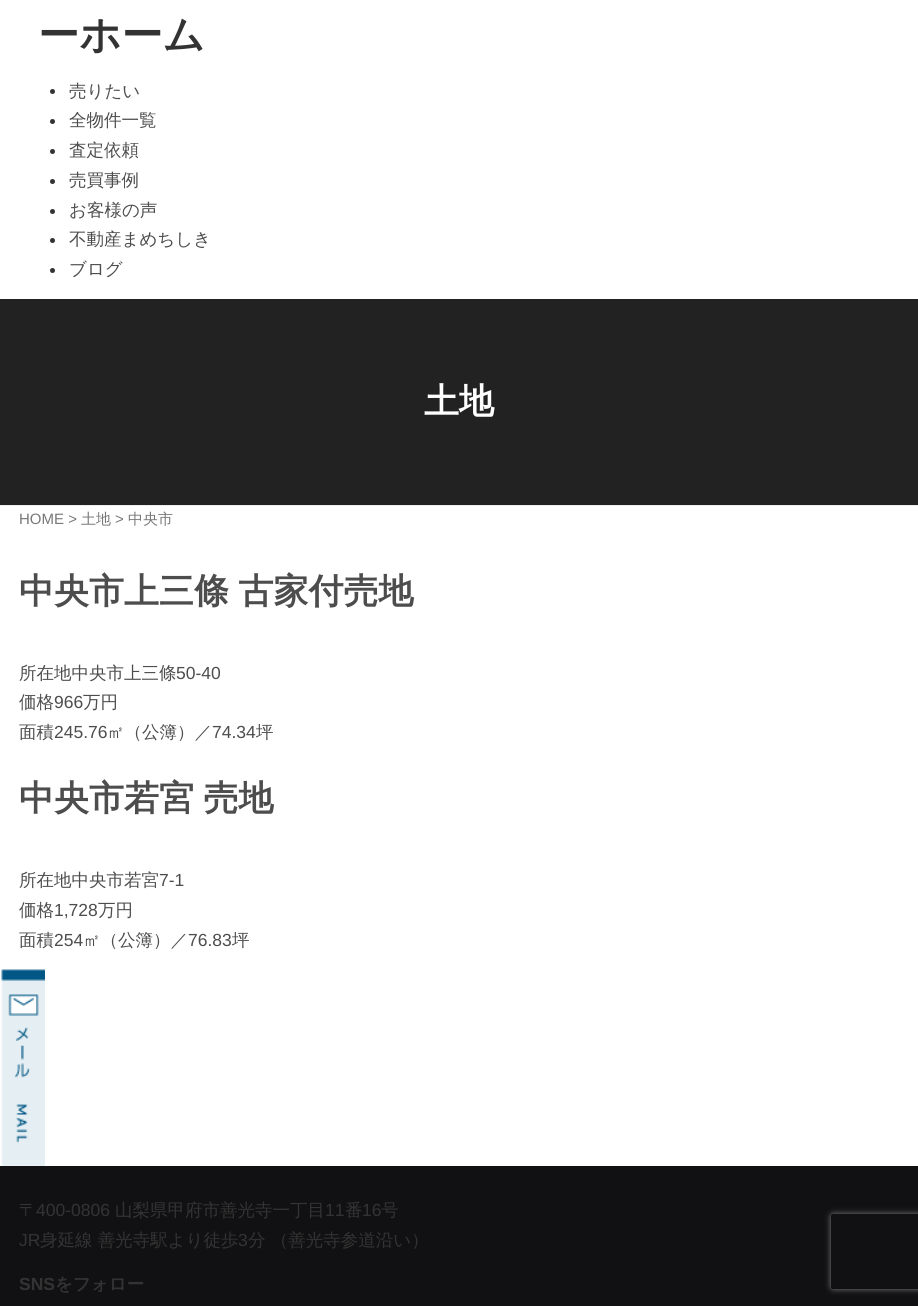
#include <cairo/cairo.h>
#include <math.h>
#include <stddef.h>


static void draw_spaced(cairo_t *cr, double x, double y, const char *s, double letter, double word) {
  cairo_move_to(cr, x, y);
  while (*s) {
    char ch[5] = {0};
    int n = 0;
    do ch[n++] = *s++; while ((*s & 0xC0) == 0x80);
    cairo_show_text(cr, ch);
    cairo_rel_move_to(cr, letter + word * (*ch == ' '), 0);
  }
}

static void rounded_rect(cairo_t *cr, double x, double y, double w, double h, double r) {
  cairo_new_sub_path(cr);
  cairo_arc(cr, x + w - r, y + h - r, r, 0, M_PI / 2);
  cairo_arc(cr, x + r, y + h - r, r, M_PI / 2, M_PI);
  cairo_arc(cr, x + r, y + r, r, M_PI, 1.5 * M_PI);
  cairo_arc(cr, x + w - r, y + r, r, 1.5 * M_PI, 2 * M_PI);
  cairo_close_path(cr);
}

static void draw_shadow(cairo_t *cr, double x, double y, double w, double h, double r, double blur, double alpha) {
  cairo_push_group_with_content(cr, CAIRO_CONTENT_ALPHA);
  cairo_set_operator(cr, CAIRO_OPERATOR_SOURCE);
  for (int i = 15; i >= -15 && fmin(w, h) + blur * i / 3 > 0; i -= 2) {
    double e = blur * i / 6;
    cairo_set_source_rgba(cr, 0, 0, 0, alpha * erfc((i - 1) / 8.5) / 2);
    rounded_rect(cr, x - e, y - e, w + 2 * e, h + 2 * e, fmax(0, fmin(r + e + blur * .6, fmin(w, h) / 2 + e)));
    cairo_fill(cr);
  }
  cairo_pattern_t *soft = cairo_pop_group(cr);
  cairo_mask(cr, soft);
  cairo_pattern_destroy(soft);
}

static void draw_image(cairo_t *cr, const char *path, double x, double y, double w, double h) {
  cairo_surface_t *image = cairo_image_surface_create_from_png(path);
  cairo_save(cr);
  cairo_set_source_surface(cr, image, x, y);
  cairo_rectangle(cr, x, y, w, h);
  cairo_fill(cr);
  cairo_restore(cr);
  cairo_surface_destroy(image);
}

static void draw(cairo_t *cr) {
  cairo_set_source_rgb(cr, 1, 1, 1);
  cairo_paint(cr);
  cairo_set_source_rgb(cr, 51 / 255.0, 51 / 255.0, 51 / 255.0);
  cairo_arc(cr, 52.5, 91.5, 2.5, 0, 2 * M_PI);
  cairo_fill(cr);
  cairo_arc(cr, 52.5, 121.5, 2.5, 0, 2 * M_PI);
  cairo_fill(cr);
  cairo_arc(cr, 52.5, 151.5, 2.5, 0, 2 * M_PI);
  cairo_fill(cr);
  cairo_arc(cr, 52.5, 181.5, 2.5, 0, 2 * M_PI);
  cairo_fill(cr);
  cairo_arc(cr, 52.5, 211.5, 2.5, 0, 2 * M_PI);
  cairo_fill(cr);
  cairo_arc(cr, 52.5, 240.5, 2.5, 0, 2 * M_PI);
  cairo_fill(cr);
  cairo_arc(cr, 52.5, 270.5, 2.5, 0, 2 * M_PI);
  cairo_fill(cr);
  cairo_set_source_rgb(cr, 34 / 255.0, 34 / 255.0, 34 / 255.0);
  cairo_rectangle(cr, 0, 299, 918, 206);
  cairo_fill(cr);
  cairo_set_source_rgb(cr, 238 / 255.0, 238 / 255.0, 238 / 255.0);
  cairo_rectangle(cr, 0, 505, 918, 1);
  cairo_fill(cr);
  draw_image(cr, "images/1.png", 1, 969, 44, 197);
  cairo_set_source_rgb(cr, 17 / 255.0, 17 / 255.0, 19 / 255.0);
  cairo_rectangle(cr, 0, 1166, 918, 140);
  cairo_fill(cr);
  cairo_save(cr);
  cairo_set_fill_rule(cr, CAIRO_FILL_RULE_EVEN_ODD);
  cairo_new_path(cr);
  cairo_move_to(cr, 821, 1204);
  cairo_line_to(cr, 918, 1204);
  cairo_line_to(cr, 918, 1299);
  cairo_line_to(cr, 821, 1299);
  cairo_close_path(cr);
  cairo_move_to(cr, 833.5, 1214);
  cairo_line_to(cr, 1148.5, 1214);
  cairo_curve_to(cr, 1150, 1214, 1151, 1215, 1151, 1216.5);
  cairo_line_to(cr, 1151, 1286.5);
  cairo_curve_to(cr, 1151, 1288, 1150, 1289, 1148.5, 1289);
  cairo_line_to(cr, 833.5, 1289);
  cairo_curve_to(cr, 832, 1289, 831, 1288, 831, 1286.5);
  cairo_line_to(cr, 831, 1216.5);
  cairo_curve_to(cr, 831, 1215, 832, 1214, 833.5, 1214);
  cairo_close_path(cr);
  cairo_clip(cr);
  cairo_set_source_rgb(cr, 128 / 255.0, 128 / 255.0, 128 / 255.0);
  draw_shadow(cr, 831, 1214, 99, 75, 2.5, 3, 1);
  cairo_restore(cr);
  cairo_select_font_face(cr, "WenQuanYi Zen Hei", CAIRO_FONT_SLANT_NORMAL, CAIRO_FONT_WEIGHT_BOLD);
  cairo_set_font_size(cr, 41.25);
  cairo_set_source_rgb(cr, 51 / 255.0, 51 / 255.0, 51 / 255.0);
  cairo_move_to(cr, 38, 49);
  cairo_show_text(cr, "ーホーム");
  cairo_select_font_face(cr, "WenQuanYi Zen Hei Medium", CAIRO_FONT_SLANT_NORMAL, CAIRO_FONT_WEIGHT_NORMAL);
  cairo_set_font_size(cr, 17.5);
  cairo_set_source_rgb(cr, 77 / 255.0, 77 / 255.0, 77 / 255.0);
  cairo_move_to(cr, 69, 97);
  cairo_show_text(cr, "売りたい");
  cairo_move_to(cr, 69, 126);
  cairo_show_text(cr, "全物件一覧");
  cairo_move_to(cr, 69, 156);
  cairo_show_text(cr, "査定依頼");
  cairo_move_to(cr, 69, 186);
  cairo_show_text(cr, "売買事例");
  cairo_move_to(cr, 69, 216);
  cairo_show_text(cr, "お客様の声");
  cairo_move_to(cr, 69, 245);
  cairo_show_text(cr, "不動産まめちしき");
  cairo_move_to(cr, 69, 275);
  cairo_show_text(cr, "ブログ");
  cairo_select_font_face(cr, "WenQuanYi Zen Hei", CAIRO_FONT_SLANT_NORMAL, CAIRO_FONT_WEIGHT_BOLD);
  cairo_set_font_size(cr, 35);
  cairo_set_source_rgb(cr, 1, 1, 1);
  cairo_move_to(cr, 424, 413);
  cairo_show_text(cr, "土地");
  cairo_select_font_face(cr, "Liberation Sans", CAIRO_FONT_SLANT_NORMAL, CAIRO_FONT_WEIGHT_NORMAL);
  cairo_set_font_size(cr, 15);
  cairo_set_source_rgb(cr, 119 / 255.0, 119 / 255.0, 119 / 255.0);
  cairo_move_to(cr, 19, 524);
  cairo_show_text(cr, "HOME >");
  cairo_select_font_face(cr, "WenQuanYi Zen Hei Medium", CAIRO_FONT_SLANT_NORMAL, CAIRO_FONT_WEIGHT_NORMAL);
  cairo_move_to(cr, 81, 524);
  cairo_show_text(cr, "土地");
  cairo_select_font_face(cr, "Liberation Sans", CAIRO_FONT_SLANT_NORMAL, CAIRO_FONT_WEIGHT_NORMAL);
  cairo_move_to(cr, 115, 524);
  cairo_show_text(cr, ">");
  cairo_select_font_face(cr, "WenQuanYi Zen Hei Medium", CAIRO_FONT_SLANT_NORMAL, CAIRO_FONT_WEIGHT_NORMAL);
  cairo_move_to(cr, 128, 524);
  cairo_show_text(cr, "中央市");
  cairo_select_font_face(cr, "WenQuanYi Zen Hei", CAIRO_FONT_SLANT_NORMAL, CAIRO_FONT_WEIGHT_BOLD);
  cairo_set_font_size(cr, 35);
  cairo_set_source_rgb(cr, 77 / 255.0, 77 / 255.0, 77 / 255.0);
  draw_spaced(cr, 19, 603, "中央市上三條 古家付売地", 0, -1);
  cairo_select_font_face(cr, "WenQuanYi Zen Hei Medium", CAIRO_FONT_SLANT_NORMAL, CAIRO_FONT_WEIGHT_NORMAL);
  cairo_set_font_size(cr, 17.5);
  cairo_move_to(cr, 19, 679);
  cairo_show_text(cr, "所在地中央市上三條");
  cairo_select_font_face(cr, "Liberation Sans", CAIRO_FONT_SLANT_NORMAL, CAIRO_FONT_WEIGHT_NORMAL);
  cairo_move_to(cr, 176, 679);
  cairo_show_text(cr, "50-40");
  cairo_select_font_face(cr, "WenQuanYi Zen Hei Medium", CAIRO_FONT_SLANT_NORMAL, CAIRO_FONT_WEIGHT_NORMAL);
  cairo_move_to(cr, 19, 708);
  cairo_show_text(cr, "価格");
  cairo_select_font_face(cr, "Liberation Sans", CAIRO_FONT_SLANT_NORMAL, CAIRO_FONT_WEIGHT_NORMAL);
  cairo_move_to(cr, 54, 708);
  cairo_show_text(cr, "966");
  cairo_select_font_face(cr, "WenQuanYi Zen Hei Medium", CAIRO_FONT_SLANT_NORMAL, CAIRO_FONT_WEIGHT_NORMAL);
  cairo_move_to(cr, 83, 708);
  cairo_show_text(cr, "万円");
  cairo_move_to(cr, 19, 738);
  cairo_show_text(cr, "面積");
  cairo_select_font_face(cr, "Liberation Sans", CAIRO_FONT_SLANT_NORMAL, CAIRO_FONT_WEIGHT_NORMAL);
  cairo_move_to(cr, 54, 738);
  cairo_show_text(cr, "245.76");
  cairo_select_font_face(cr, "WenQuanYi Zen Hei Medium", CAIRO_FONT_SLANT_NORMAL, CAIRO_FONT_WEIGHT_NORMAL);
  cairo_move_to(cr, 107, 738);
  cairo_show_text(cr, "㎡（公簿）／");
  cairo_select_font_face(cr, "Liberation Sans", CAIRO_FONT_SLANT_NORMAL, CAIRO_FONT_WEIGHT_NORMAL);
  cairo_move_to(cr, 212, 738);
  cairo_show_text(cr, "74.34");
  cairo_select_font_face(cr, "WenQuanYi Zen Hei Medium", CAIRO_FONT_SLANT_NORMAL, CAIRO_FONT_WEIGHT_NORMAL);
  cairo_move_to(cr, 256, 738);
  cairo_show_text(cr, "坪");
  cairo_select_font_face(cr, "WenQuanYi Zen Hei", CAIRO_FONT_SLANT_NORMAL, CAIRO_FONT_WEIGHT_BOLD);
  cairo_set_font_size(cr, 35);
  draw_spaced(cr, 19, 810, "中央市若宮 売地", 0, -1);
  cairo_select_font_face(cr, "WenQuanYi Zen Hei Medium", CAIRO_FONT_SLANT_NORMAL, CAIRO_FONT_WEIGHT_NORMAL);
  cairo_set_font_size(cr, 17.5);
  cairo_move_to(cr, 19, 886);
  cairo_show_text(cr, "所在地中央市若宮");
  cairo_select_font_face(cr, "Liberation Sans", CAIRO_FONT_SLANT_NORMAL, CAIRO_FONT_WEIGHT_NORMAL);
  cairo_move_to(cr, 159, 886);
  cairo_show_text(cr, "7-1");
  cairo_select_font_face(cr, "WenQuanYi Zen Hei Medium", CAIRO_FONT_SLANT_NORMAL, CAIRO_FONT_WEIGHT_NORMAL);
  cairo_move_to(cr, 19, 916);
  cairo_show_text(cr, "価格");
  cairo_select_font_face(cr, "Liberation Sans", CAIRO_FONT_SLANT_NORMAL, CAIRO_FONT_WEIGHT_NORMAL);
  cairo_move_to(cr, 54, 916);
  cairo_show_text(cr, "1,728");
  cairo_select_font_face(cr, "WenQuanYi Zen Hei Medium", CAIRO_FONT_SLANT_NORMAL, CAIRO_FONT_WEIGHT_NORMAL);
  cairo_move_to(cr, 98, 916);
  cairo_show_text(cr, "万円");
  cairo_move_to(cr, 19, 946);
  cairo_show_text(cr, "面積");
  cairo_select_font_face(cr, "Liberation Sans", CAIRO_FONT_SLANT_NORMAL, CAIRO_FONT_WEIGHT_NORMAL);
  cairo_move_to(cr, 54, 946);
  cairo_show_text(cr, "254");
  cairo_select_font_face(cr, "WenQuanYi Zen Hei Medium", CAIRO_FONT_SLANT_NORMAL, CAIRO_FONT_WEIGHT_NORMAL);
  cairo_move_to(cr, 83, 946);
  cairo_show_text(cr, "㎡（公簿）／");
  cairo_select_font_face(cr, "Liberation Sans", CAIRO_FONT_SLANT_NORMAL, CAIRO_FONT_WEIGHT_NORMAL);
  cairo_move_to(cr, 188, 946);
  cairo_show_text(cr, "76.83");
  cairo_select_font_face(cr, "WenQuanYi Zen Hei Medium", CAIRO_FONT_SLANT_NORMAL, CAIRO_FONT_WEIGHT_NORMAL);
  cairo_move_to(cr, 232, 946);
  cairo_show_text(cr, "坪");
  cairo_set_source_rgb(cr, 51 / 255.0, 51 / 255.0, 51 / 255.0);
  cairo_move_to(cr, 19, 1216);
  cairo_show_text(cr, "〒");
  cairo_select_font_face(cr, "Liberation Sans", CAIRO_FONT_SLANT_NORMAL, CAIRO_FONT_WEIGHT_NORMAL);
  cairo_move_to(cr, 36, 1216);
  cairo_show_text(cr, "400-0806");
  cairo_select_font_face(cr, "WenQuanYi Zen Hei Medium", CAIRO_FONT_SLANT_NORMAL, CAIRO_FONT_WEIGHT_NORMAL);
  cairo_move_to(cr, 115, 1216);
  cairo_show_text(cr, "山梨県甲府市善光寺一丁目");
  cairo_select_font_face(cr, "Liberation Sans", CAIRO_FONT_SLANT_NORMAL, CAIRO_FONT_WEIGHT_NORMAL);
  cairo_move_to(cr, 325, 1216);
  cairo_show_text(cr, "11");
  cairo_select_font_face(cr, "WenQuanYi Zen Hei Medium", CAIRO_FONT_SLANT_NORMAL, CAIRO_FONT_WEIGHT_NORMAL);
  cairo_move_to(cr, 345, 1216);
  cairo_show_text(cr, "番");
  cairo_select_font_face(cr, "Liberation Sans", CAIRO_FONT_SLANT_NORMAL, CAIRO_FONT_WEIGHT_NORMAL);
  cairo_move_to(cr, 362, 1216);
  cairo_show_text(cr, "16");
  cairo_select_font_face(cr, "WenQuanYi Zen Hei Medium", CAIRO_FONT_SLANT_NORMAL, CAIRO_FONT_WEIGHT_NORMAL);
  cairo_move_to(cr, 381, 1216);
  cairo_show_text(cr, "号");
  cairo_select_font_face(cr, "Liberation Sans", CAIRO_FONT_SLANT_NORMAL, CAIRO_FONT_WEIGHT_NORMAL);
  cairo_move_to(cr, 19, 1246);
  cairo_show_text(cr, "JR");
  cairo_select_font_face(cr, "WenQuanYi Zen Hei Medium", CAIRO_FONT_SLANT_NORMAL, CAIRO_FONT_WEIGHT_NORMAL);
  cairo_move_to(cr, 40, 1246);
  cairo_show_text(cr, "身延線 善光寺駅より徒歩");
  cairo_select_font_face(cr, "Liberation Sans", CAIRO_FONT_SLANT_NORMAL, CAIRO_FONT_WEIGHT_NORMAL);
  cairo_move_to(cr, 238, 1246);
  cairo_show_text(cr, "3");
  cairo_select_font_face(cr, "WenQuanYi Zen Hei Medium", CAIRO_FONT_SLANT_NORMAL, CAIRO_FONT_WEIGHT_NORMAL);
  cairo_move_to(cr, 248, 1246);
  cairo_show_text(cr, "分 （善光寺参道沿い）");
  cairo_select_font_face(cr, "Liberation Sans", CAIRO_FONT_SLANT_NORMAL, CAIRO_FONT_WEIGHT_BOLD);
  cairo_move_to(cr, 19, 1290);
  cairo_show_text(cr, "SNS");
  cairo_select_font_face(cr, "WenQuanYi Zen Hei", CAIRO_FONT_SLANT_NORMAL, CAIRO_FONT_WEIGHT_BOLD);
  cairo_move_to(cr, 55, 1290);
  cairo_show_text(cr, "をフォロー");
}

int main(void) {
  cairo_surface_t *surface = cairo_image_surface_create(CAIRO_FORMAT_RGB24, 918, 1306);
  cairo_t *cr = cairo_create(surface);
  cairo_font_options_t *options = cairo_font_options_create();
  cairo_font_options_set_hint_metrics(options, CAIRO_HINT_METRICS_OFF);
  cairo_font_options_set_hint_style(options, CAIRO_HINT_STYLE_NONE);
  cairo_set_font_options(cr, options);
  cairo_set_miter_limit(cr, 4);
  draw(cr);
  cairo_surface_write_to_png(surface, "out.png");
  cairo_font_options_destroy(options);
  cairo_destroy(cr);
  cairo_surface_destroy(surface);
  return 0;
}
